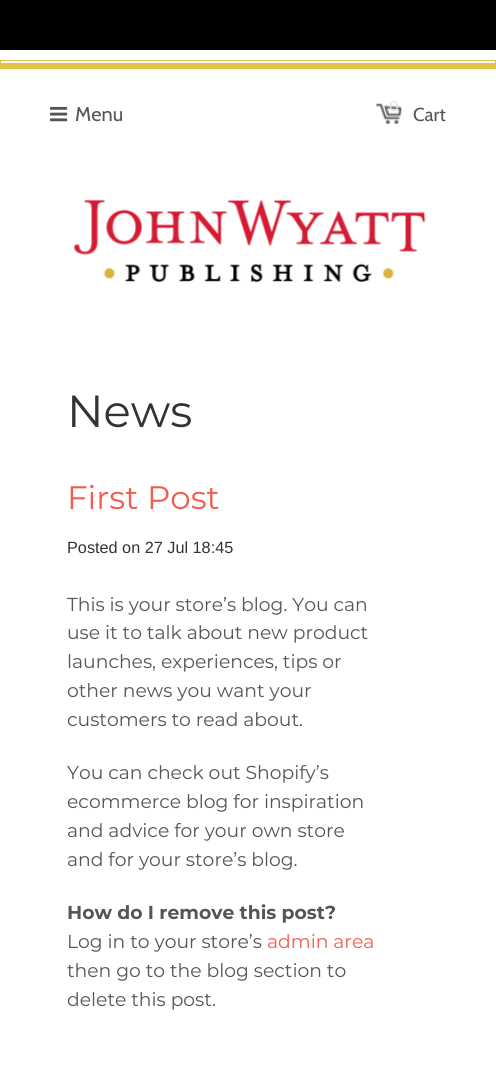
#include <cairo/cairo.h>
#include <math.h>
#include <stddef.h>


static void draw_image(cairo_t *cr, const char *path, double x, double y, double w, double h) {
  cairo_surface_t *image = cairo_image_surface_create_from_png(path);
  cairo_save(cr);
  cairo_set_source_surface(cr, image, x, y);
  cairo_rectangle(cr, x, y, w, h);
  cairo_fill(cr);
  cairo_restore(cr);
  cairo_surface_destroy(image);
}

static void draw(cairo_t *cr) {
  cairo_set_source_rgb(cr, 1, 1, 1);
  cairo_paint(cr);
  cairo_set_source_rgb(cr, 0, 0, 0);
  cairo_rectangle(cr, 0, 0, 496, 50);
  cairo_fill(cr);
  cairo_set_source_rgb(cr, 225 / 255.0, 194 / 255.0, 72 / 255.0);
  cairo_rectangle(cr, 0, 60, 496, 1);
  cairo_fill(cr);
  cairo_rectangle(cr, 495, 60, 1, 9);
  cairo_fill(cr);
  cairo_rectangle(cr, 0, 63, 496, 6);
  cairo_fill(cr);
  cairo_rectangle(cr, 0, 60, 1, 9);
  cairo_fill(cr);
  draw_image(cr, "images/1.png", 50, 106, 18, 16);
  draw_image(cr, "images/2.png", 376, 103, 26, 21);
  draw_image(cr, "images/3.png", 73, 199, 353, 83);
  cairo_select_font_face(cr, "Cabin", CAIRO_FONT_SLANT_NORMAL, CAIRO_FONT_WEIGHT_NORMAL);
  cairo_set_font_size(cr, 20);
  cairo_set_source_rgb(cr, 85 / 255.0, 85 / 255.0, 85 / 255.0);
  cairo_move_to(cr, 75, 121);
  cairo_show_text(cr, "Menu");
  cairo_set_font_size(cr, 14);
  cairo_set_source_rgb(cr, 224 / 255.0, 224 / 255.0, 224 / 255.0);
  cairo_move_to(cr, 389, 111);
  cairo_show_text(cr, "0");
  cairo_set_font_size(cr, 18.75);
  cairo_set_source_rgb(cr, 85 / 255.0, 85 / 255.0, 85 / 255.0);
  cairo_move_to(cr, 413, 121);
  cairo_show_text(cr, "Cart");
  cairo_select_font_face(cr, "Montserrat", CAIRO_FONT_SLANT_NORMAL, CAIRO_FONT_WEIGHT_NORMAL);
  cairo_set_font_size(cr, 45);
  cairo_set_source_rgb(cr, 51 / 255.0, 51 / 255.0, 51 / 255.0);
  cairo_move_to(cr, 67, 427);
  cairo_show_text(cr, "News");
  cairo_set_font_size(cr, 32.5);
  cairo_set_source_rgb(cr, 244 / 255.0, 91 / 255.0, 79 / 255.0);
  cairo_move_to(cr, 67, 509);
  cairo_show_text(cr, "First Post");
  cairo_select_font_face(cr, "Liberation Sans", CAIRO_FONT_SLANT_NORMAL, CAIRO_FONT_WEIGHT_NORMAL);
  cairo_set_font_size(cr, 16.25);
  cairo_set_source_rgb(cr, 51 / 255.0, 51 / 255.0, 51 / 255.0);
  cairo_move_to(cr, 67, 553);
  cairo_show_text(cr, "Posted on 27 Jul 18:45");
  cairo_select_font_face(cr, "Montserrat", CAIRO_FONT_SLANT_NORMAL, CAIRO_FONT_WEIGHT_NORMAL);
  cairo_set_font_size(cr, 18.75);
  cairo_set_source_rgb(cr, 85 / 255.0, 85 / 255.0, 85 / 255.0);
  cairo_move_to(cr, 67, 611);
  cairo_show_text(cr, "This is your store’s blog. You can");
  cairo_move_to(cr, 67, 639);
  cairo_show_text(cr, "use it to talk about new product");
  cairo_move_to(cr, 67, 668);
  cairo_show_text(cr, "launches, experiences, tips or");
  cairo_move_to(cr, 67, 697);
  cairo_show_text(cr, "other news you want your");
  cairo_move_to(cr, 67, 726);
  cairo_show_text(cr, "customers to read about.");
  cairo_move_to(cr, 67, 779);
  cairo_show_text(cr, "You can check out Shopify’s");
  cairo_move_to(cr, 67, 808);
  cairo_show_text(cr, "ecommerce blog for inspiration");
  cairo_move_to(cr, 67, 837);
  cairo_show_text(cr, "and advice for your own store");
  cairo_move_to(cr, 67, 866);
  cairo_show_text(cr, "and for your store’s blog.");
  cairo_select_font_face(cr, "Montserrat", CAIRO_FONT_SLANT_NORMAL, CAIRO_FONT_WEIGHT_BOLD);
  cairo_move_to(cr, 67, 919);
  cairo_show_text(cr, "How do I remove this post?");
  cairo_select_font_face(cr, "Montserrat", CAIRO_FONT_SLANT_NORMAL, CAIRO_FONT_WEIGHT_NORMAL);
  cairo_move_to(cr, 67, 948);
  cairo_show_text(cr, "Log in to your store’s");
  cairo_set_source_rgb(cr, 244 / 255.0, 91 / 255.0, 79 / 255.0);
  cairo_move_to(cr, 267, 948);
  cairo_show_text(cr, "admin area");
  cairo_set_source_rgb(cr, 85 / 255.0, 85 / 255.0, 85 / 255.0);
  cairo_move_to(cr, 67, 977);
  cairo_show_text(cr, "then go to the blog section to");
  cairo_move_to(cr, 67, 1006);
  cairo_show_text(cr, "delete this post.");
}

int main(void) {
  cairo_surface_t *surface = cairo_image_surface_create(CAIRO_FORMAT_RGB24, 496, 1076);
  cairo_t *cr = cairo_create(surface);
  cairo_font_options_t *options = cairo_font_options_create();
  cairo_font_options_set_hint_metrics(options, CAIRO_HINT_METRICS_OFF);
  cairo_font_options_set_hint_style(options, CAIRO_HINT_STYLE_NONE);
  cairo_set_font_options(cr, options);
  cairo_set_miter_limit(cr, 4);
  draw(cr);
  cairo_surface_write_to_png(surface, "out.png");
  cairo_font_options_destroy(options);
  cairo_destroy(cr);
  cairo_surface_destroy(surface);
  return 0;
}
